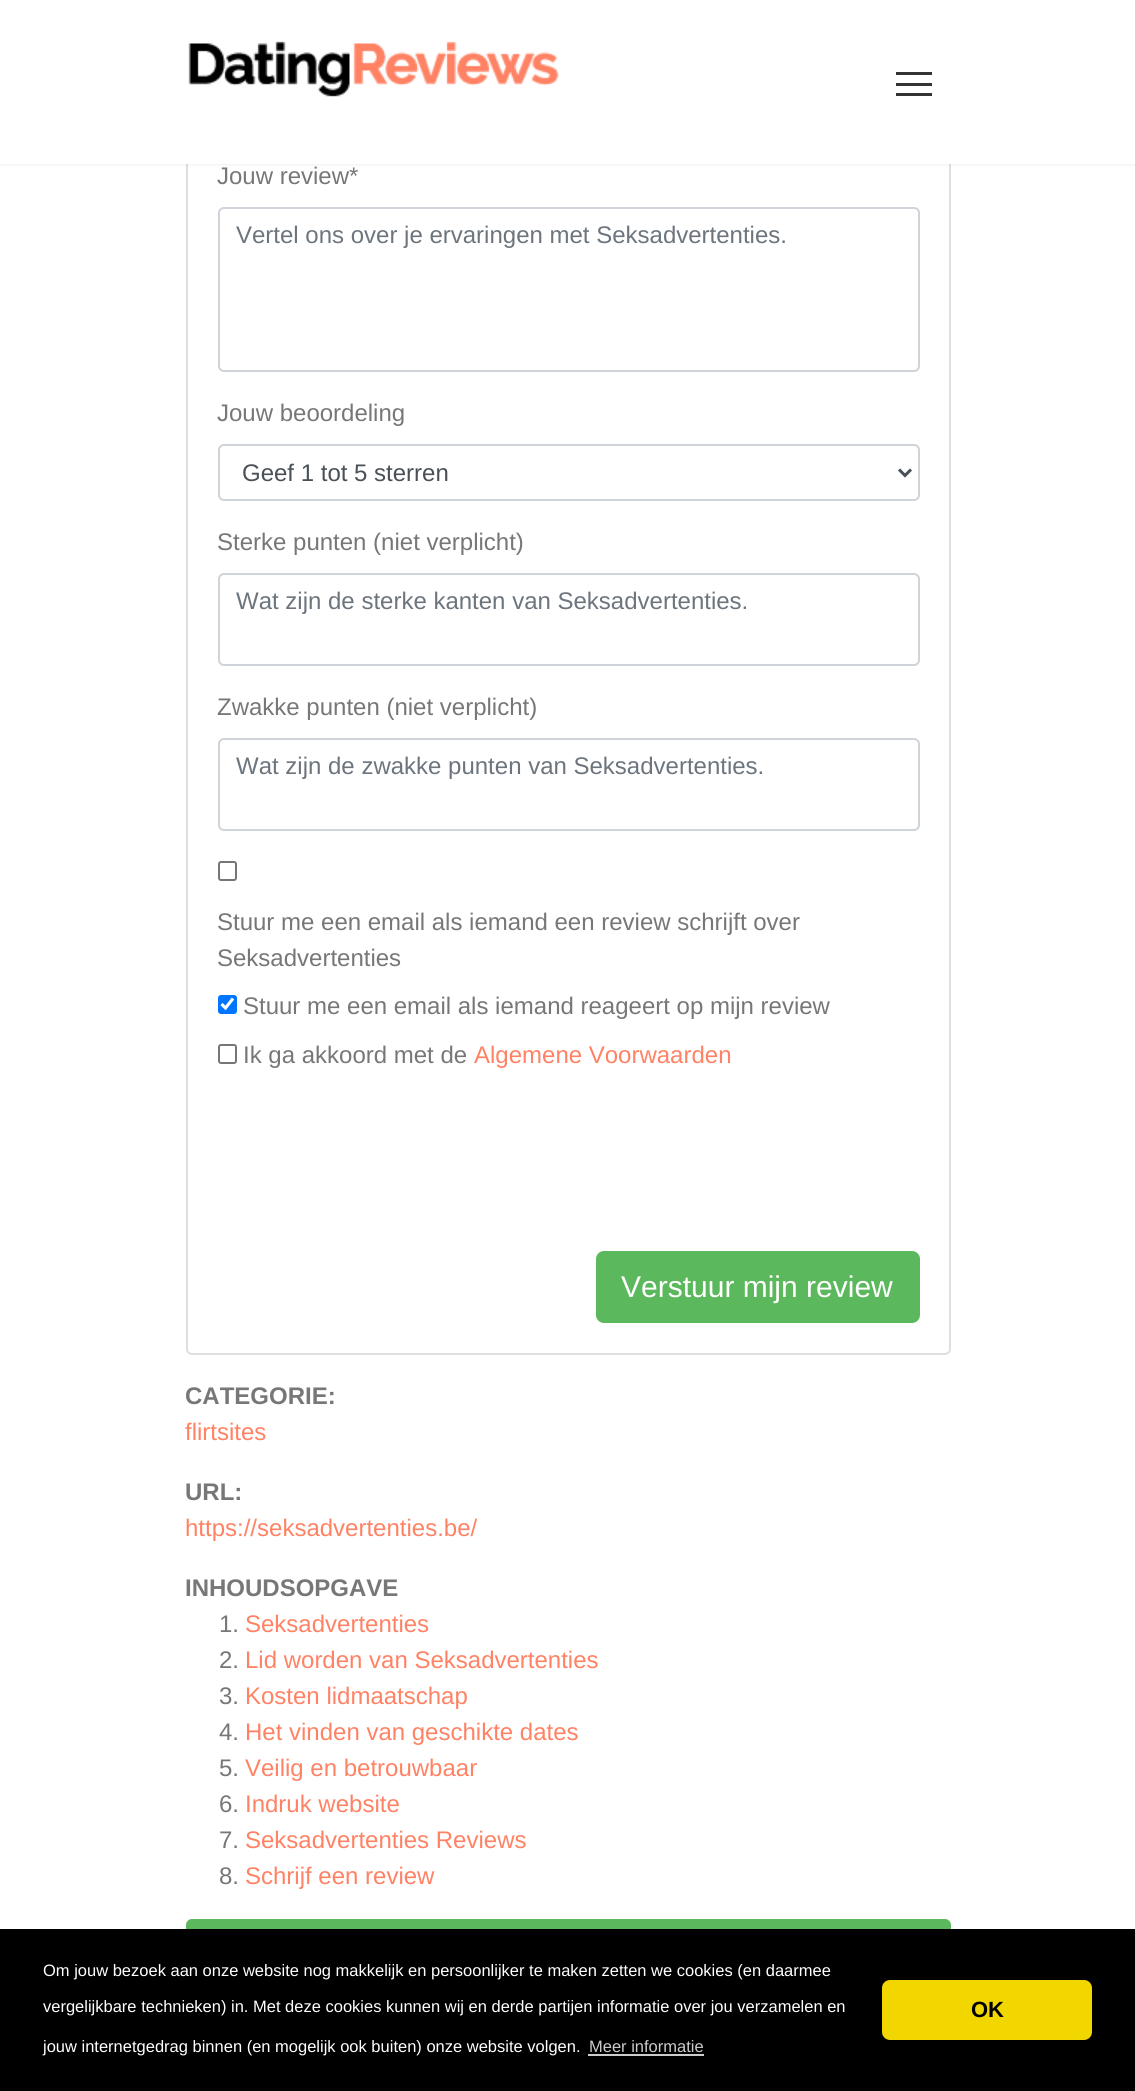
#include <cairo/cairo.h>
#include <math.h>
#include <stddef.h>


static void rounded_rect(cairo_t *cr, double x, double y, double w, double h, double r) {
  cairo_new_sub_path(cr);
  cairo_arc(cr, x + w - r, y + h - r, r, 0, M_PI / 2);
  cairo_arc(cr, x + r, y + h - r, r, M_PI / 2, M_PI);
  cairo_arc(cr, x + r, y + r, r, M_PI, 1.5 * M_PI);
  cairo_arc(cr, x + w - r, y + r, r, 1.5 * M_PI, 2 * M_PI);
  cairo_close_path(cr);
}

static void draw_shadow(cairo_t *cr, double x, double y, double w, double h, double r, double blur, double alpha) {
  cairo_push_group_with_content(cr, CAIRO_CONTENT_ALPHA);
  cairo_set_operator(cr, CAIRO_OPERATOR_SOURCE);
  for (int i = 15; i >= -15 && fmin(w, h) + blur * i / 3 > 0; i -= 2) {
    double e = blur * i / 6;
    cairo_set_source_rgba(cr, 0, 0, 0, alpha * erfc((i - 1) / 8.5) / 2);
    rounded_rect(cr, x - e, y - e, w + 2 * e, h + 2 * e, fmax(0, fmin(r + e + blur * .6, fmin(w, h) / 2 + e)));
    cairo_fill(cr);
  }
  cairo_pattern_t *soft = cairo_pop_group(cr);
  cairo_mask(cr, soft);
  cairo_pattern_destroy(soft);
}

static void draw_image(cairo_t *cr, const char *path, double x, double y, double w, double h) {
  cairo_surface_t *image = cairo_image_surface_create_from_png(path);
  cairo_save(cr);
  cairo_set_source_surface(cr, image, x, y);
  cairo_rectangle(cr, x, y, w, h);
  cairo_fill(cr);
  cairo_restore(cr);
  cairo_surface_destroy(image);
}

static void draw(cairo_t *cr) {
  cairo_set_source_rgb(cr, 1, 1, 1);
  cairo_paint(cr);
  rounded_rect(cr, 187, -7, 763, 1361, 5);
  cairo_set_source_rgb(cr, 223 / 255.0, 223 / 255.0, 223 / 255.0);
  cairo_stroke(cr);
  cairo_set_source_rgb(cr, 0, 0, 0);
  draw_shadow(cr, 0, 0, 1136, 164, 0, 2, 0.1);
  cairo_set_source_rgb(cr, 1, 1, 1);
  cairo_rectangle(cr, 0, 0, 1135, 164);
  cairo_fill(cr);
  draw_image(cr, "images/1.png", 188, 41, 371, 56);
  cairo_set_source_rgb(cr, 51 / 255.0, 51 / 255.0, 51 / 255.0);
  cairo_rectangle(cr, 896, 83, 36, 3);
  cairo_fill(cr);
  cairo_rectangle(cr, 896, 72, 36, 3);
  cairo_fill(cr);
  cairo_rectangle(cr, 896, 93, 36, 3);
  cairo_fill(cr);
  rounded_rect(cr, 219, 208, 700, 163, 5);
  cairo_set_source_rgb(cr, 206 / 255.0, 212 / 255.0, 218 / 255.0);
  cairo_stroke(cr);
  rounded_rect(cr, 219, 445, 700, 55, 5);
  cairo_stroke(cr);
  cairo_new_path(cr);
  cairo_move_to(cr, 899, 469.5);
  cairo_line_to(cr, 905, 475.5);
  cairo_line_to(cr, 911, 469.5);
  cairo_set_source_rgb(cr, 73 / 255.0, 80 / 255.0, 87 / 255.0);
  cairo_set_line_width(cr, 3);
  cairo_stroke(cr);
  rounded_rect(cr, 219, 574, 700, 91, 5);
  cairo_set_source_rgb(cr, 206 / 255.0, 212 / 255.0, 218 / 255.0);
  cairo_set_line_width(cr, 2);
  cairo_stroke(cr);
  rounded_rect(cr, 219, 739, 700, 91, 5);
  cairo_stroke(cr);
  rounded_rect(cr, 219, 862, 17, 18, 2);
  cairo_set_source_rgb(cr, 118 / 255.0, 118 / 255.0, 118 / 255.0);
  cairo_stroke(cr);
  cairo_set_source_rgb(cr, 0, 117 / 255.0, 1);
  rounded_rect(cr, 218, 995, 19, 19, 3);
  cairo_fill(cr);
  cairo_new_path(cr);
  cairo_move_to(cr, 221.5, 1004);
  cairo_line_to(cr, 225.5, 1008);
  cairo_line_to(cr, 233, 998.5);
  cairo_set_source_rgb(cr, 1, 1, 1);
  cairo_set_line_width(cr, 3.1);
  cairo_stroke(cr);
  rounded_rect(cr, 219, 1045, 17, 18, 2);
  cairo_set_source_rgb(cr, 118 / 255.0, 118 / 255.0, 118 / 255.0);
  cairo_set_line_width(cr, 2);
  cairo_stroke(cr);
  cairo_set_source_rgb(cr, 92 / 255.0, 184 / 255.0, 92 / 255.0);
  rounded_rect(cr, 597, 1252, 322, 70, 7);
  cairo_fill_preserve(cr);
  cairo_stroke(cr);
  rounded_rect(cr, 187, 1920, 763, 55, 5);
  cairo_fill_preserve(cr);
  cairo_stroke(cr);
  cairo_set_source_rgb(cr, 0, 0, 0);
  cairo_rectangle(cr, 0, 1929, 1135, 162);
  cairo_fill(cr);
  cairo_set_source_rgb(cr, 204 / 255.0, 204 / 255.0, 204 / 255.0);
  cairo_rectangle(cr, 588, 2054, 116, 2);
  cairo_fill(cr);
  cairo_set_source_rgb(cr, 241 / 255.0, 214 / 255.0, 0);
  rounded_rect(cr, 882, 1980, 210, 60, 8);
  cairo_fill(cr);
  cairo_select_font_face(cr, "Liberation Sans", CAIRO_FONT_SLANT_NORMAL, CAIRO_FONT_WEIGHT_NORMAL);
  cairo_set_font_size(cr, 24);
  cairo_set_source_rgb(cr, 119 / 255.0, 119 / 255.0, 119 / 255.0);
  cairo_move_to(cr, 217, 184);
  cairo_show_text(cr, "Jouw review*");
  cairo_set_source_rgb(cr, 108 / 255.0, 117 / 255.0, 125 / 255.0);
  cairo_move_to(cr, 236, 243);
  cairo_show_text(cr, "Vertel ons over je ervaringen met Seksadvertenties.");
  cairo_set_source_rgb(cr, 119 / 255.0, 119 / 255.0, 119 / 255.0);
  cairo_move_to(cr, 217, 421);
  cairo_show_text(cr, "Jouw beoordeling");
  cairo_set_source_rgb(cr, 73 / 255.0, 80 / 255.0, 87 / 255.0);
  cairo_move_to(cr, 242, 481);
  cairo_show_text(cr, "Geef 1 tot 5 sterren");
  cairo_set_source_rgb(cr, 119 / 255.0, 119 / 255.0, 119 / 255.0);
  cairo_move_to(cr, 217, 550);
  cairo_show_text(cr, "Sterke punten (niet verplicht)");
  cairo_set_source_rgb(cr, 108 / 255.0, 117 / 255.0, 125 / 255.0);
  cairo_move_to(cr, 236, 609);
  cairo_show_text(cr, "Wat zijn de sterke kanten van Seksadvertenties.");
  cairo_set_source_rgb(cr, 119 / 255.0, 119 / 255.0, 119 / 255.0);
  cairo_move_to(cr, 217, 715);
  cairo_show_text(cr, "Zwakke punten (niet verplicht)");
  cairo_set_source_rgb(cr, 108 / 255.0, 117 / 255.0, 125 / 255.0);
  cairo_move_to(cr, 236, 774);
  cairo_show_text(cr, "Wat zijn de zwakke punten van Seksadvertenties.");
  cairo_set_source_rgb(cr, 119 / 255.0, 119 / 255.0, 119 / 255.0);
  cairo_move_to(cr, 217, 930);
  cairo_show_text(cr, "Stuur me een email als iemand een review schrijft over");
  cairo_move_to(cr, 217, 966);
  cairo_show_text(cr, "Seksadvertenties");
  cairo_move_to(cr, 243, 1014);
  cairo_show_text(cr, "Stuur me een email als iemand reageert op mijn review");
  cairo_move_to(cr, 243, 1063);
  cairo_show_text(cr, "Ik ga akkoord met de");
  cairo_set_source_rgb(cr, 1, 130 / 255.0, 100 / 255.0);
  cairo_move_to(cr, 474, 1063);
  cairo_show_text(cr, "Algemene Voorwaarden");
  cairo_set_font_size(cr, 30);
  cairo_set_source_rgb(cr, 1, 1, 1);
  cairo_move_to(cr, 621, 1297);
  cairo_show_text(cr, "Verstuur mijn review");
  cairo_select_font_face(cr, "Liberation Sans", CAIRO_FONT_SLANT_NORMAL, CAIRO_FONT_WEIGHT_BOLD);
  cairo_set_font_size(cr, 24);
  cairo_set_source_rgb(cr, 119 / 255.0, 119 / 255.0, 119 / 255.0);
  cairo_move_to(cr, 185, 1404);
  cairo_show_text(cr, "CATEGORIE:");
  cairo_select_font_face(cr, "Liberation Sans", CAIRO_FONT_SLANT_NORMAL, CAIRO_FONT_WEIGHT_NORMAL);
  cairo_set_source_rgb(cr, 1, 130 / 255.0, 100 / 255.0);
  cairo_move_to(cr, 185, 1440);
  cairo_show_text(cr, "flirtsites");
  cairo_select_font_face(cr, "Liberation Sans", CAIRO_FONT_SLANT_NORMAL, CAIRO_FONT_WEIGHT_BOLD);
  cairo_set_source_rgb(cr, 119 / 255.0, 119 / 255.0, 119 / 255.0);
  cairo_move_to(cr, 185, 1500);
  cairo_show_text(cr, "URL:");
  cairo_select_font_face(cr, "Liberation Sans", CAIRO_FONT_SLANT_NORMAL, CAIRO_FONT_WEIGHT_NORMAL);
  cairo_set_source_rgb(cr, 1, 130 / 255.0, 100 / 255.0);
  cairo_move_to(cr, 185, 1536);
  cairo_show_text(cr, "https://seksadvertenties.be/");
  cairo_select_font_face(cr, "Liberation Sans", CAIRO_FONT_SLANT_NORMAL, CAIRO_FONT_WEIGHT_BOLD);
  cairo_set_source_rgb(cr, 119 / 255.0, 119 / 255.0, 119 / 255.0);
  cairo_move_to(cr, 185, 1596);
  cairo_show_text(cr, "INHOUDSOPGAVE");
  cairo_select_font_face(cr, "Liberation Sans", CAIRO_FONT_SLANT_NORMAL, CAIRO_FONT_WEIGHT_NORMAL);
  cairo_move_to(cr, 219, 1632);
  cairo_show_text(cr, "1.");
  cairo_set_source_rgb(cr, 1, 130 / 255.0, 100 / 255.0);
  cairo_move_to(cr, 245, 1632);
  cairo_show_text(cr, "Seksadvertenties");
  cairo_set_source_rgb(cr, 119 / 255.0, 119 / 255.0, 119 / 255.0);
  cairo_move_to(cr, 219, 1668);
  cairo_show_text(cr, "2.");
  cairo_set_source_rgb(cr, 1, 130 / 255.0, 100 / 255.0);
  cairo_move_to(cr, 245, 1668);
  cairo_show_text(cr, "Lid worden van Seksadvertenties");
  cairo_set_source_rgb(cr, 119 / 255.0, 119 / 255.0, 119 / 255.0);
  cairo_move_to(cr, 219, 1704);
  cairo_show_text(cr, "3.");
  cairo_set_source_rgb(cr, 1, 130 / 255.0, 100 / 255.0);
  cairo_move_to(cr, 245, 1704);
  cairo_show_text(cr, "Kosten lidmaatschap");
  cairo_set_source_rgb(cr, 119 / 255.0, 119 / 255.0, 119 / 255.0);
  cairo_move_to(cr, 219, 1740);
  cairo_show_text(cr, "4.");
  cairo_set_source_rgb(cr, 1, 130 / 255.0, 100 / 255.0);
  cairo_move_to(cr, 245, 1740);
  cairo_show_text(cr, "Het vinden van geschikte dates");
  cairo_set_source_rgb(cr, 119 / 255.0, 119 / 255.0, 119 / 255.0);
  cairo_move_to(cr, 219, 1776);
  cairo_show_text(cr, "5.");
  cairo_set_source_rgb(cr, 1, 130 / 255.0, 100 / 255.0);
  cairo_move_to(cr, 245, 1776);
  cairo_show_text(cr, "Veilig en betrouwbaar");
  cairo_set_source_rgb(cr, 119 / 255.0, 119 / 255.0, 119 / 255.0);
  cairo_move_to(cr, 219, 1812);
  cairo_show_text(cr, "6.");
  cairo_set_source_rgb(cr, 1, 130 / 255.0, 100 / 255.0);
  cairo_move_to(cr, 245, 1812);
  cairo_show_text(cr, "Indruk website");
  cairo_set_source_rgb(cr, 119 / 255.0, 119 / 255.0, 119 / 255.0);
  cairo_move_to(cr, 219, 1848);
  cairo_show_text(cr, "7.");
  cairo_set_source_rgb(cr, 1, 130 / 255.0, 100 / 255.0);
  cairo_move_to(cr, 245, 1848);
  cairo_show_text(cr, "Seksadvertenties Reviews");
  cairo_set_source_rgb(cr, 119 / 255.0, 119 / 255.0, 119 / 255.0);
  cairo_move_to(cr, 219, 1884);
  cairo_show_text(cr, "8.");
  cairo_set_source_rgb(cr, 1, 130 / 255.0, 100 / 255.0);
  cairo_move_to(cr, 245, 1884);
  cairo_show_text(cr, "Schrijf een review");
  cairo_set_font_size(cr, 16.5);
  cairo_set_source_rgb(cr, 1, 1, 1);
  cairo_move_to(cr, 43, 1976);
  cairo_show_text(cr, "Om jouw bezoek aan onze website nog makkelijk en persoonlijker te maken zetten we cookies (en daarmee");
  cairo_move_to(cr, 43, 2012);
  cairo_show_text(cr, "vergelijkbare technieken) in. Met deze cookies kunnen wij en derde partijen informatie over jou verzamelen en");
  cairo_move_to(cr, 43, 2052);
  cairo_show_text(cr, "jouw internetgedrag binnen (en mogelijk ook buiten) onze website volgen.");
  cairo_set_source_rgb(cr, 204 / 255.0, 204 / 255.0, 204 / 255.0);
  cairo_move_to(cr, 589, 2052);
  cairo_show_text(cr, "Meer informatie");
  cairo_select_font_face(cr, "Liberation Sans", CAIRO_FONT_SLANT_NORMAL, CAIRO_FONT_WEIGHT_BOLD);
  cairo_set_font_size(cr, 22);
  cairo_set_source_rgb(cr, 0, 0, 0);
  cairo_move_to(cr, 971, 2017);
  cairo_show_text(cr, "OK");
}

int main(void) {
  cairo_surface_t *surface = cairo_image_surface_create(CAIRO_FORMAT_RGB24, 1135, 2091);
  cairo_t *cr = cairo_create(surface);
  cairo_font_options_t *options = cairo_font_options_create();
  cairo_font_options_set_hint_metrics(options, CAIRO_HINT_METRICS_OFF);
  cairo_font_options_set_hint_style(options, CAIRO_HINT_STYLE_NONE);
  cairo_set_font_options(cr, options);
  cairo_set_miter_limit(cr, 4);
  draw(cr);
  cairo_surface_write_to_png(surface, "out.png");
  cairo_font_options_destroy(options);
  cairo_destroy(cr);
  cairo_surface_destroy(surface);
  return 0;
}
